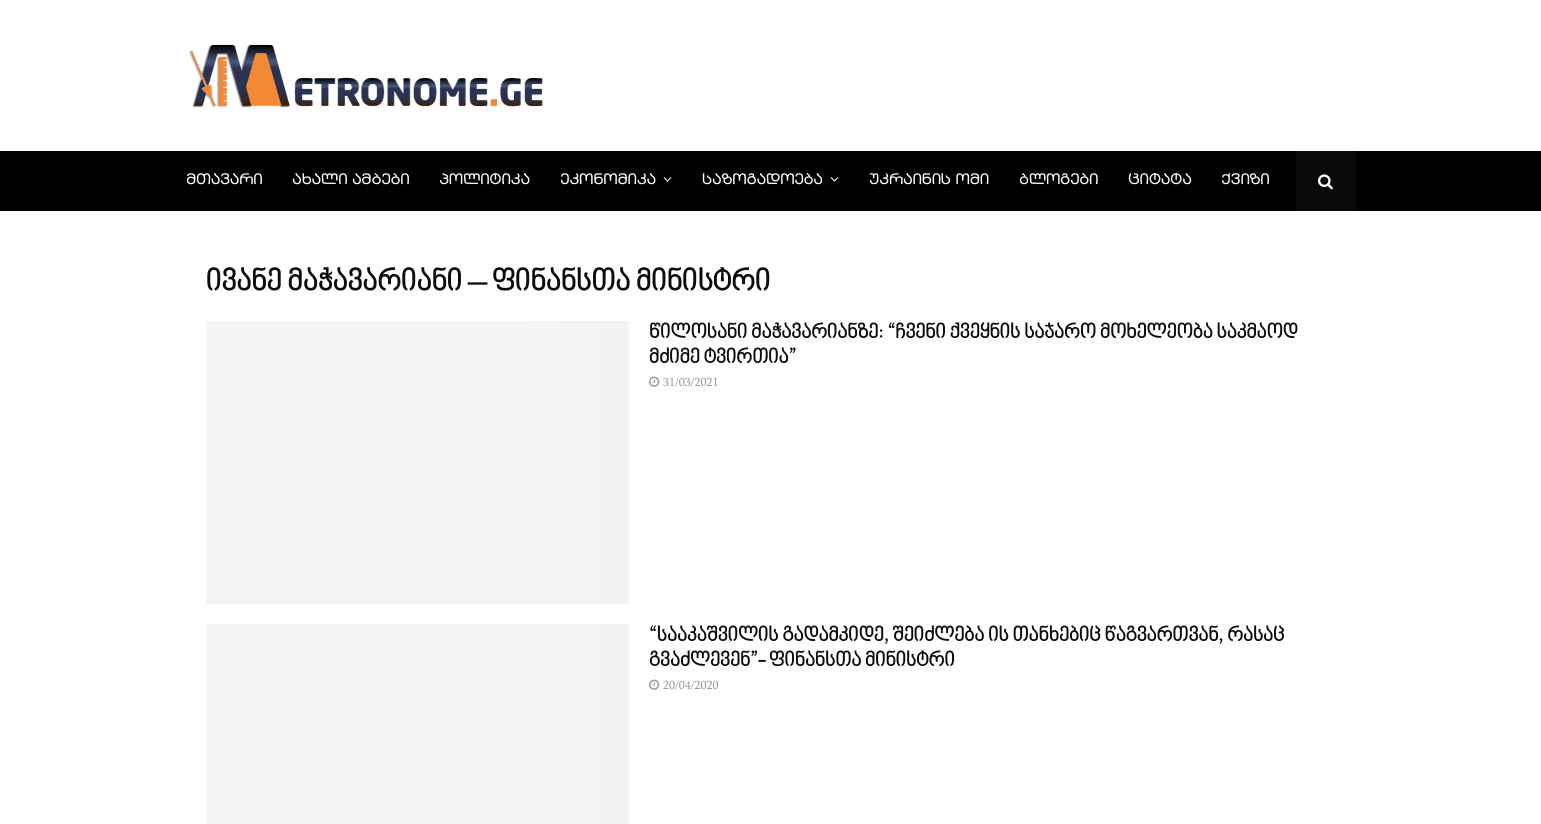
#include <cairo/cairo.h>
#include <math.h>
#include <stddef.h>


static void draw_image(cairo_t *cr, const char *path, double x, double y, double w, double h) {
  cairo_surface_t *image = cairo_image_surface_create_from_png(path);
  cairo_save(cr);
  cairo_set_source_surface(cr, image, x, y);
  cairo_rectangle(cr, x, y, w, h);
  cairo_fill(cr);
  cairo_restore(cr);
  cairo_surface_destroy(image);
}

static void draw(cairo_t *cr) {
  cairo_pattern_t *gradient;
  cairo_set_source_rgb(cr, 1, 1, 1);
  cairo_paint(cr);
  draw_image(cr, "images/1.png", 189, 44, 354, 64);
  cairo_set_source_rgb(cr, 0, 0, 0);
  cairo_rectangle(cr, 0, 151, 1541, 60);
  cairo_fill(cr);
  draw_image(cr, "images/2.png", 663, 177, 9, 5);
  draw_image(cr, "images/2.png", 830, 177, 9, 5);
  cairo_set_source_rgb(cr, 10 / 255.0, 10 / 255.0, 10 / 255.0);
  cairo_rectangle(cr, 1296, 151, 60, 60);
  cairo_fill(cr);
  draw_image(cr, "images/3.png", 1318, 174, 15, 16);
  gradient = cairo_pattern_create_linear(868, 463, -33, 463);
  cairo_pattern_add_color_stop_rgba(gradient, 0, 245 / 255.0, 245 / 255.0, 245 / 255.0, 1);
  cairo_pattern_add_color_stop_rgba(gradient, 0.15, 239 / 255.0, 239 / 255.0, 239 / 255.0, 1);
  cairo_pattern_add_color_stop_rgba(gradient, 0.4, 245 / 255.0, 245 / 255.0, 245 / 255.0, 1);
  cairo_pattern_add_color_stop_rgba(gradient, 1, 245 / 255.0, 245 / 255.0, 245 / 255.0, 1);
  cairo_set_source(cr, gradient);
  cairo_pattern_destroy(gradient);
  cairo_rectangle(cr, 206, 321, 423, 283);
  cairo_fill(cr);
  draw_image(cr, "images/4.png", 649, 376, 11, 11);
  gradient = cairo_pattern_create_linear(868, 765, -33, 765);
  cairo_pattern_add_color_stop_rgba(gradient, 0, 245 / 255.0, 245 / 255.0, 245 / 255.0, 1);
  cairo_pattern_add_color_stop_rgba(gradient, 0.15, 239 / 255.0, 239 / 255.0, 239 / 255.0, 1);
  cairo_pattern_add_color_stop_rgba(gradient, 0.4, 245 / 255.0, 245 / 255.0, 245 / 255.0, 1);
  cairo_pattern_add_color_stop_rgba(gradient, 1, 245 / 255.0, 245 / 255.0, 245 / 255.0, 1);
  cairo_set_source(cr, gradient);
  cairo_pattern_destroy(gradient);
  cairo_rectangle(cr, 206, 624, 423, 200);
  cairo_fill(cr);
  draw_image(cr, "images/4.png", 649, 679, 11, 11);
  cairo_select_font_face(cr, "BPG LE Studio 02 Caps", CAIRO_FONT_SLANT_NORMAL, CAIRO_FONT_WEIGHT_BOLD);
  cairo_set_font_size(cr, 14);
  cairo_set_source_rgb(cr, 1, 1, 1);
  cairo_move_to(cr, 186, 184);
  cairo_show_text(cr, "მთავარი");
  cairo_move_to(cr, 292, 184);
  cairo_show_text(cr, "ახალი ამბები");
  cairo_move_to(cr, 439, 184);
  cairo_show_text(cr, "პოლიტიკა");
  cairo_move_to(cr, 560, 184);
  cairo_show_text(cr, "ეკონომიკა");
  cairo_move_to(cr, 702, 184);
  cairo_show_text(cr, "საზოგადოება");
  cairo_move_to(cr, 869, 184);
  cairo_show_text(cr, "უკრაინის ომი");
  cairo_move_to(cr, 1019, 184);
  cairo_show_text(cr, "ბლოგები");
  cairo_move_to(cr, 1128, 184);
  cairo_show_text(cr, "ციტატა");
  cairo_move_to(cr, 1221, 184);
  cairo_show_text(cr, "ქვიზი");
  cairo_select_font_face(cr, "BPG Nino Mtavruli", CAIRO_FONT_SLANT_ITALIC, CAIRO_FONT_WEIGHT_BOLD);
  cairo_set_font_size(cr, 30);
  cairo_set_source_rgb(cr, 12 / 255.0, 12 / 255.0, 12 / 255.0);
  cairo_move_to(cr, 206, 292);
  cairo_show_text(cr, "ივანე მაჭავარიანი – ფინანსთა მინისტრი");
  cairo_set_font_size(cr, 20);
  cairo_move_to(cr, 649, 339);
  cairo_show_text(cr, "წილოსანი მაჭავარიანზე: “ჩვენი ქვეყნის საჯარო მოხელეობა საკმაოდ");
  cairo_move_to(cr, 649, 364);
  cairo_show_text(cr, "მძიმე ტვირთია”");
  cairo_select_font_face(cr, "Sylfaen", CAIRO_FONT_SLANT_NORMAL, CAIRO_FONT_WEIGHT_NORMAL);
  cairo_set_font_size(cr, 12);
  cairo_set_source_rgb(cr, 153 / 255.0, 153 / 255.0, 153 / 255.0);
  cairo_move_to(cr, 663, 386);
  cairo_show_text(cr, "31/03/2021");
  cairo_select_font_face(cr, "BPG Nino Mtavruli", CAIRO_FONT_SLANT_ITALIC, CAIRO_FONT_WEIGHT_BOLD);
  cairo_set_font_size(cr, 20);
  cairo_set_source_rgb(cr, 12 / 255.0, 12 / 255.0, 12 / 255.0);
  cairo_move_to(cr, 649, 642);
  cairo_show_text(cr, "“სააკაშვილის გადამკიდე, შეიძლება ის თანხებიც წაგვართვან, რასაც");
  cairo_move_to(cr, 649, 667);
  cairo_show_text(cr, "გვაძლევენ”- ფინანსთა მინისტრი");
  cairo_select_font_face(cr, "Sylfaen", CAIRO_FONT_SLANT_NORMAL, CAIRO_FONT_WEIGHT_NORMAL);
  cairo_set_font_size(cr, 12);
  cairo_set_source_rgb(cr, 153 / 255.0, 153 / 255.0, 153 / 255.0);
  cairo_move_to(cr, 663, 689);
  cairo_show_text(cr, "20/04/2020");
}

int main(void) {
  cairo_surface_t *surface = cairo_image_surface_create(CAIRO_FORMAT_RGB24, 1541, 824);
  cairo_t *cr = cairo_create(surface);
  cairo_font_options_t *options = cairo_font_options_create();
  cairo_font_options_set_hint_metrics(options, CAIRO_HINT_METRICS_OFF);
  cairo_font_options_set_hint_style(options, CAIRO_HINT_STYLE_NONE);
  cairo_set_font_options(cr, options);
  cairo_set_miter_limit(cr, 4);
  draw(cr);
  cairo_surface_write_to_png(surface, "out.png");
  cairo_font_options_destroy(options);
  cairo_destroy(cr);
  cairo_surface_destroy(surface);
  return 0;
}
